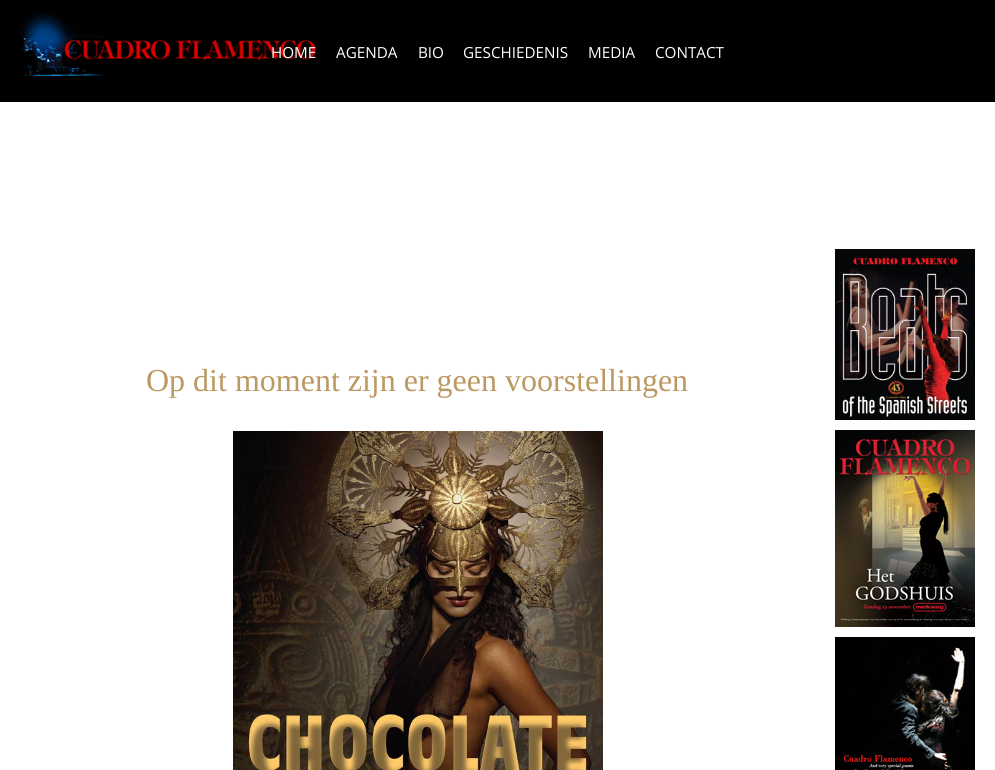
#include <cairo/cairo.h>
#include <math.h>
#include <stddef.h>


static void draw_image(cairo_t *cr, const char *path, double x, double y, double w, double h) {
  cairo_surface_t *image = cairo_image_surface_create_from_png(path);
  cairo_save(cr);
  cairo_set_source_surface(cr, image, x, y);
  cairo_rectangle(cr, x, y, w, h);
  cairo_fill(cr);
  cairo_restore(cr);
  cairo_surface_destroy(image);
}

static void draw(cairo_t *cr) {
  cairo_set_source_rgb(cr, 1, 1, 1);
  cairo_paint(cr);
  cairo_set_source_rgb(cr, 0, 0, 0);
  cairo_rectangle(cr, 0, 0, 995, 102);
  cairo_fill(cr);
  draw_image(cr, "images/1.png", 20, 12, 296, 65);
  draw_image(cr, "images/2.png", 233, 431, 370, 339);
  draw_image(cr, "images/3.png", 835, 249, 140, 171);
  draw_image(cr, "images/4.png", 835, 430, 140, 197);
  draw_image(cr, "images/5.png", 835, 637, 140, 133);
  cairo_select_font_face(cr, "Open Sans", CAIRO_FONT_SLANT_NORMAL, CAIRO_FONT_WEIGHT_NORMAL);
  cairo_set_font_size(cr, 15.25);
  cairo_set_source_rgb(cr, 1, 1, 1);
  cairo_move_to(cr, 271, 58);
  cairo_show_text(cr, "HOME");
  cairo_move_to(cr, 336, 58);
  cairo_show_text(cr, "AGENDA");
  cairo_move_to(cr, 418, 58);
  cairo_show_text(cr, "BIO");
  cairo_move_to(cr, 463, 58);
  cairo_show_text(cr, "GESCHIEDENIS");
  cairo_move_to(cr, 588, 58);
  cairo_show_text(cr, "MEDIA");
  cairo_move_to(cr, 655, 58);
  cairo_show_text(cr, "CONTACT");
  cairo_select_font_face(cr, "Liberation Serif", CAIRO_FONT_SLANT_NORMAL, CAIRO_FONT_WEIGHT_NORMAL);
  cairo_set_font_size(cr, 32);
  cairo_set_source_rgb(cr, 188 / 255.0, 152 / 255.0, 98 / 255.0);
  cairo_move_to(cr, 146, 391);
  cairo_show_text(cr, "Op dit moment zijn er geen voorstellingen");
}

int main(void) {
  cairo_surface_t *surface = cairo_image_surface_create(CAIRO_FORMAT_RGB24, 995, 770);
  cairo_t *cr = cairo_create(surface);
  cairo_font_options_t *options = cairo_font_options_create();
  cairo_font_options_set_hint_metrics(options, CAIRO_HINT_METRICS_OFF);
  cairo_font_options_set_hint_style(options, CAIRO_HINT_STYLE_NONE);
  cairo_set_font_options(cr, options);
  cairo_set_miter_limit(cr, 4);
  draw(cr);
  cairo_surface_write_to_png(surface, "out.png");
  cairo_font_options_destroy(options);
  cairo_destroy(cr);
  cairo_surface_destroy(surface);
  return 0;
}
